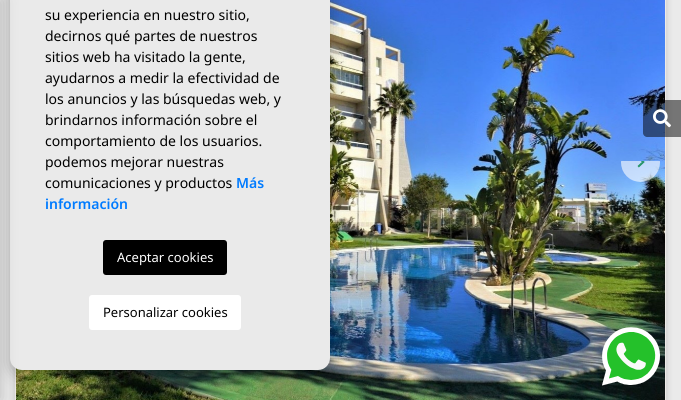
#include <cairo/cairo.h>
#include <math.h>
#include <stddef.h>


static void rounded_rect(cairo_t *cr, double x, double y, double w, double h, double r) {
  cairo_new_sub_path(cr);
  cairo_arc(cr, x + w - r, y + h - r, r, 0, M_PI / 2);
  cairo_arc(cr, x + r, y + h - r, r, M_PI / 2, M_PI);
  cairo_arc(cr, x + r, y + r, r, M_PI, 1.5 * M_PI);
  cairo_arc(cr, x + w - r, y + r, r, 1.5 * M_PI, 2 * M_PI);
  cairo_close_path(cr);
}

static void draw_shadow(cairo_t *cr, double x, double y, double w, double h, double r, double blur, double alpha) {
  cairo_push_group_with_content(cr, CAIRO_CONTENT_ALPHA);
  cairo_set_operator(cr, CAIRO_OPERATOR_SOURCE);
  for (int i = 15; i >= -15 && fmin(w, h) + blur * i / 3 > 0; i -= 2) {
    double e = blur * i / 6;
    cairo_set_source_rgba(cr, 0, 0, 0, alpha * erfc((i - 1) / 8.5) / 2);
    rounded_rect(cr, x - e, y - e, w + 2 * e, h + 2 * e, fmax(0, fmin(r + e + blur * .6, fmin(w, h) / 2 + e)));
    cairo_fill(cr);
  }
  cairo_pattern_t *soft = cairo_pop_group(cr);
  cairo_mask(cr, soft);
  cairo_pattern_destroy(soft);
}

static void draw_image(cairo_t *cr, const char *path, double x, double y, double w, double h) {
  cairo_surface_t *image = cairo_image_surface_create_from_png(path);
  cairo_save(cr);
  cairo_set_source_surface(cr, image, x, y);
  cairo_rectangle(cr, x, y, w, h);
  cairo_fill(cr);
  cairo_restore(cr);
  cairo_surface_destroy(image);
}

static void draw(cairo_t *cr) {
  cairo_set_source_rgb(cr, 234 / 255.0, 234 / 255.0, 234 / 255.0);
  cairo_paint(cr);
  cairo_set_source_rgb(cr, 0, 0, 0);
  draw_shadow(cr, 15, -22, 651, 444, 10, 4, 0.16);
  cairo_rectangle(cr, 15.5, -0.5, 650, 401);
  cairo_set_source_rgb(cr, 238 / 255.0, 234 / 255.0, 231 / 255.0);
  cairo_set_line_width(cr, 1);
  cairo_stroke(cr);
  draw_image(cr, "images/1.png", 16, 0, 649, 400);
  draw_image(cr, "images/2.png", 621, 161, 39, 21);
  cairo_set_source_rgb(cr, 0, 0, 0);
  draw_shadow(cr, 10, -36, 320, 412, 12, 8, 0.25);
  cairo_set_source_rgb(cr, 234 / 255.0, 234 / 255.0, 234 / 255.0);
  rounded_rect(cr, 10, -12, 320, 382, 12);
  cairo_fill(cr);
  cairo_set_source_rgb(cr, 0, 0, 0);
  draw_shadow(cr, -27, 0, 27, 400, 0, 9, 0.2);
  cairo_set_source_rgb(cr, 0, 0, 0);
  rounded_rect(cr, 103, 240, 124, 35, 3);
  cairo_fill(cr);
  cairo_set_source_rgb(cr, 1, 1, 1);
  rounded_rect(cr, 89, 295, 152, 35, 3);
  cairo_fill(cr);
  cairo_set_source_rgba(cr, 0, 0, 0, 0.5);
  cairo_new_path(cr);
  cairo_move_to(cr, 647, 100);
  cairo_line_to(cr, 681, 100);
  cairo_line_to(cr, 681, 137);
  cairo_line_to(cr, 647, 137);
  cairo_curve_to(cr, 645, 137, 643, 135, 643, 133);
  cairo_line_to(cr, 643, 104);
  cairo_curve_to(cr, 643, 102, 645, 100, 647, 100);
  cairo_close_path(cr);
  cairo_fill(cr);
  draw_image(cr, "images/3.png", 653, 109, 18, 19);
  draw_image(cr, "images/4.png", 598, 327, 65, 60);
  cairo_select_font_face(cr, "Noto Sans", CAIRO_FONT_SLANT_NORMAL, CAIRO_FONT_WEIGHT_NORMAL);
  cairo_set_font_size(cr, 14);
  cairo_set_source_rgb(cr, 0, 0, 0);
  cairo_move_to(cr, 45, 20);
  cairo_show_text(cr, "su experiencia en nuestro sitio,");
  cairo_move_to(cr, 45, 41);
  cairo_show_text(cr, "decirnos qué partes de nuestros");
  cairo_move_to(cr, 45, 62);
  cairo_show_text(cr, "sitios web ha visitado la gente,");
  cairo_move_to(cr, 45, 83);
  cairo_show_text(cr, "ayudarnos a medir la efectividad de");
  cairo_move_to(cr, 45, 104);
  cairo_show_text(cr, "los anuncios y las búsquedas web, y");
  cairo_move_to(cr, 45, 125);
  cairo_show_text(cr, "brindarnos información sobre el");
  cairo_move_to(cr, 45, 146);
  cairo_show_text(cr, "comportamiento de los usuarios.");
  cairo_move_to(cr, 45, 167);
  cairo_show_text(cr, "podemos mejorar nuestras");
  cairo_move_to(cr, 45, 188);
  cairo_show_text(cr, "comunicaciones y productos");
  cairo_select_font_face(cr, "Noto Sans SemiBold", CAIRO_FONT_SLANT_NORMAL, CAIRO_FONT_WEIGHT_NORMAL);
  cairo_set_source_rgb(cr, 0, 123 / 255.0, 1);
  cairo_move_to(cr, 236, 188);
  cairo_show_text(cr, "Más");
  cairo_move_to(cr, 45, 209);
  cairo_show_text(cr, "información");
  cairo_select_font_face(cr, "Noto Sans", CAIRO_FONT_SLANT_NORMAL, CAIRO_FONT_WEIGHT_NORMAL);
  cairo_set_font_size(cr, 13);
  cairo_set_source_rgb(cr, 1, 1, 1);
  cairo_move_to(cr, 117, 262);
  cairo_show_text(cr, "Aceptar cookies");
  cairo_set_source_rgb(cr, 0, 0, 0);
  cairo_move_to(cr, 103, 317);
  cairo_show_text(cr, "Personalizar cookies");
}

int main(void) {
  cairo_surface_t *surface = cairo_image_surface_create(CAIRO_FORMAT_RGB24, 681, 400);
  cairo_t *cr = cairo_create(surface);
  cairo_font_options_t *options = cairo_font_options_create();
  cairo_font_options_set_hint_metrics(options, CAIRO_HINT_METRICS_OFF);
  cairo_font_options_set_hint_style(options, CAIRO_HINT_STYLE_NONE);
  cairo_set_font_options(cr, options);
  cairo_set_miter_limit(cr, 4);
  draw(cr);
  cairo_surface_write_to_png(surface, "out.png");
  cairo_font_options_destroy(options);
  cairo_destroy(cr);
  cairo_surface_destroy(surface);
  return 0;
}
